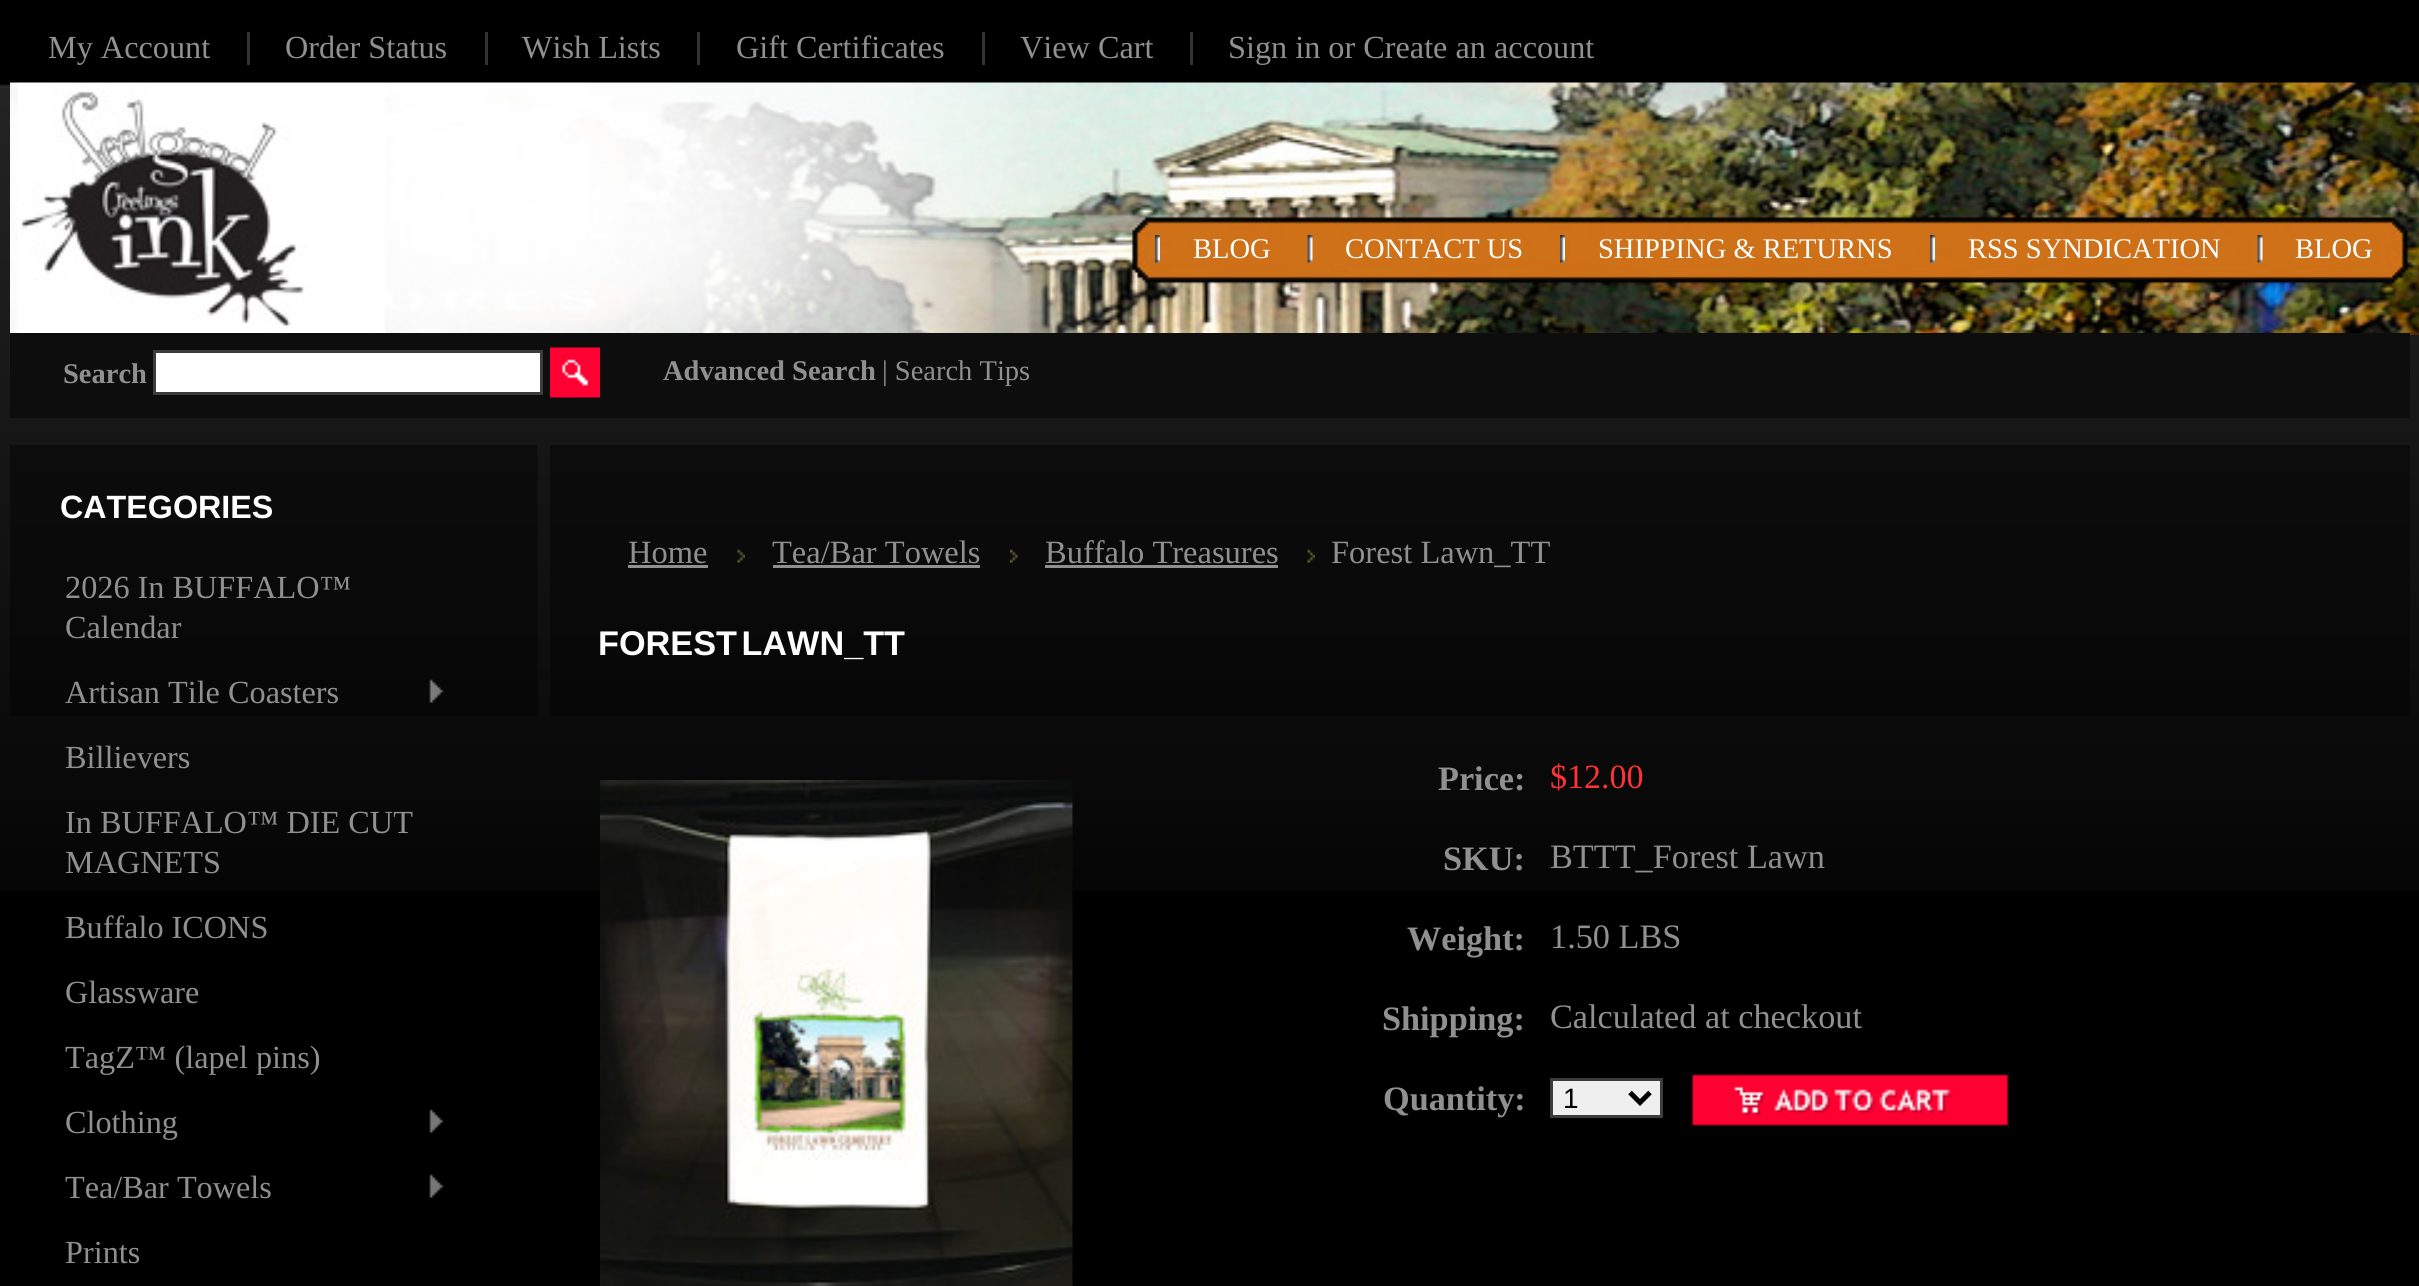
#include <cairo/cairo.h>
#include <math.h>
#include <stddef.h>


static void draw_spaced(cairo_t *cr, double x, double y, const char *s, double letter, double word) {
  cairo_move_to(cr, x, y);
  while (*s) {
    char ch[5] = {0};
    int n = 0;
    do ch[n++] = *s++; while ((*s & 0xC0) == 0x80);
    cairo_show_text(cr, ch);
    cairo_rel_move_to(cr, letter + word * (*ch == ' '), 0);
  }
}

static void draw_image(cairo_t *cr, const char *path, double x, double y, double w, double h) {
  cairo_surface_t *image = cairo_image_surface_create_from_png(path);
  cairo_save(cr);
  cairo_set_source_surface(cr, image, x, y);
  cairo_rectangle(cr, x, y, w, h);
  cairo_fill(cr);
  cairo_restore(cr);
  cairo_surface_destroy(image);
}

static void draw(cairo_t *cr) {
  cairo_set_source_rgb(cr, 0, 0, 0);
  cairo_paint(cr);
  draw_image(cr, "images/1.png", 0, 84, 2419, 807);
  cairo_set_source_rgb(cr, 51 / 255.0, 51 / 255.0, 51 / 255.0);
  cairo_rectangle(cr, 247, 32, 3, 33);
  cairo_fill(cr);
  cairo_rectangle(cr, 485, 32, 3, 33);
  cairo_fill(cr);
  cairo_rectangle(cr, 697, 32, 3, 33);
  cairo_fill(cr);
  cairo_rectangle(cr, 982, 32, 3, 33);
  cairo_fill(cr);
  cairo_rectangle(cr, 1190, 32, 3, 33);
  cairo_fill(cr);
  draw_image(cr, "images/7.png", 10, 82, 2409, 253);
  draw_image(cr, "images/2.png", 1155, 235, 5, 28);
  draw_image(cr, "images/3.png", 1307, 235, 6, 28);
  draw_image(cr, "images/4.png", 1560, 235, 5, 28);
  draw_image(cr, "images/5.png", 1930, 235, 5, 28);
  draw_image(cr, "images/6.png", 2257, 235, 6, 28);
  cairo_set_source_rgb(cr, 13 / 255.0, 13 / 255.0, 13 / 255.0);
  cairo_rectangle(cr, 10, 333, 2400, 85);
  cairo_fill(cr);
  cairo_set_source_rgb(cr, 1, 1, 1);
  cairo_rectangle(cr, 154.5, 351.5, 387, 42);
  cairo_fill_preserve(cr);
  cairo_set_source_rgb(cr, 60 / 255.0, 60 / 255.0, 60 / 255.0);
  cairo_set_line_width(cr, 3);
  cairo_stroke(cr);
  draw_image(cr, "images/8.png", 550, 347, 50, 51);
  draw_image(cr, "images/9.png", 10, 445, 528, 271);
  draw_image(cr, "images/10.png", 429, 679, 15, 24);
  draw_image(cr, "images/11.png", 429, 1109, 15, 24);
  draw_image(cr, "images/12.png", 429, 1174, 15, 24);
  draw_image(cr, "images/13.png", 550, 445, 1860, 271);
  cairo_set_source_rgb(cr, 144 / 255.0, 144 / 255.0, 144 / 255.0);
  cairo_rectangle(cr, 628, 565, 80, 3);
  cairo_fill(cr);
  draw_image(cr, "images/14.png", 737, 549, 8, 14);
  cairo_rectangle(cr, 773, 565, 207, 3);
  cairo_fill(cr);
  draw_image(cr, "images/15.png", 1010, 549, 8, 14);
  cairo_rectangle(cr, 1045, 565, 233, 3);
  cairo_fill(cr);
  draw_image(cr, "images/14.png", 1307, 549, 8, 14);
  draw_image(cr, "images/16.png", 600, 780, 473, 506);
  cairo_set_source_rgb(cr, 239 / 255.0, 239 / 255.0, 239 / 255.0);
  cairo_rectangle(cr, 1551.5, 1079.5, 110, 37);
  cairo_fill_preserve(cr);
  cairo_set_source_rgb(cr, 60 / 255.0, 60 / 255.0, 60 / 255.0);
  cairo_stroke(cr);
  cairo_new_path(cr);
  cairo_move_to(cr, 1630, 1092.5);
  cairo_line_to(cr, 1640, 1102.5);
  cairo_line_to(cr, 1650, 1092.5);
  cairo_set_source_rgb(cr, 0, 0, 0);
  cairo_set_line_width(cr, 5);
  cairo_stroke(cr);
  draw_image(cr, "images/17.png", 1690, 1072, 320, 56);
  cairo_select_font_face(cr, "Liberation Serif", CAIRO_FONT_SLANT_NORMAL, CAIRO_FONT_WEIGHT_NORMAL);
  cairo_set_font_size(cr, 32.25);
  cairo_set_source_rgb(cr, 144 / 255.0, 144 / 255.0, 144 / 255.0);
  cairo_move_to(cr, 48, 58);
  cairo_show_text(cr, "My Account");
  cairo_move_to(cr, 285, 58);
  cairo_show_text(cr, "Order Status");
  cairo_move_to(cr, 522, 58);
  cairo_show_text(cr, "Wish Lists");
  cairo_move_to(cr, 736, 58);
  cairo_show_text(cr, "Gift Certificates");
  cairo_move_to(cr, 1020, 58);
  cairo_show_text(cr, "View Cart");
  cairo_move_to(cr, 1228, 58);
  cairo_show_text(cr, "Sign in or Create an account");
  cairo_set_font_size(cr, 28.5);
  cairo_set_source_rgb(cr, 1, 1, 1);
  cairo_move_to(cr, 1193, 258);
  cairo_show_text(cr, "BLOG");
  cairo_move_to(cr, 1345, 258);
  cairo_show_text(cr, "CONTACT US");
  cairo_move_to(cr, 1598, 258);
  cairo_show_text(cr, "SHIPPING & RETURNS");
  cairo_move_to(cr, 1968, 258);
  cairo_show_text(cr, "RSS SYNDICATION");
  cairo_move_to(cr, 2295, 258);
  cairo_show_text(cr, "BLOG");
  cairo_select_font_face(cr, "Liberation Serif", CAIRO_FONT_SLANT_NORMAL, CAIRO_FONT_WEIGHT_BOLD);
  cairo_set_source_rgb(cr, 144 / 255.0, 144 / 255.0, 144 / 255.0);
  cairo_move_to(cr, 63, 383);
  cairo_show_text(cr, "Search");
  cairo_move_to(cr, 663, 380);
  cairo_show_text(cr, "Advanced Search");
  cairo_select_font_face(cr, "Liberation Serif", CAIRO_FONT_SLANT_NORMAL, CAIRO_FONT_WEIGHT_NORMAL);
  cairo_move_to(cr, 882, 380);
  cairo_show_text(cr, "| Search Tips");
  cairo_select_font_face(cr, "Liberation Sans", CAIRO_FONT_SLANT_NORMAL, CAIRO_FONT_WEIGHT_BOLD);
  cairo_set_font_size(cr, 32.25);
  cairo_set_source_rgb(cr, 1, 1, 1);
  cairo_move_to(cr, 60, 518);
  cairo_show_text(cr, "CATEGORIES");
  cairo_select_font_face(cr, "Liberation Serif", CAIRO_FONT_SLANT_NORMAL, CAIRO_FONT_WEIGHT_NORMAL);
  cairo_set_source_rgb(cr, 144 / 255.0, 144 / 255.0, 144 / 255.0);
  cairo_move_to(cr, 65, 598);
  cairo_show_text(cr, "2026 In BUFFALO™");
  cairo_move_to(cr, 65, 638);
  cairo_show_text(cr, "Calendar");
  cairo_move_to(cr, 65, 703);
  cairo_show_text(cr, "Artisan Tile Coasters");
  cairo_move_to(cr, 65, 768);
  cairo_show_text(cr, "Billievers");
  cairo_move_to(cr, 65, 833);
  cairo_show_text(cr, "In BUFFALO™ DIE CUT");
  cairo_move_to(cr, 65, 873);
  cairo_show_text(cr, "MAGNETS");
  cairo_move_to(cr, 65, 938);
  cairo_show_text(cr, "Buffalo ICONS");
  cairo_move_to(cr, 65, 1003);
  cairo_show_text(cr, "Glassware");
  cairo_move_to(cr, 65, 1068);
  cairo_show_text(cr, "TagZ™ (lapel pins)");
  cairo_move_to(cr, 65, 1133);
  cairo_show_text(cr, "Clothing");
  cairo_move_to(cr, 65, 1198);
  cairo_show_text(cr, "Tea/Bar Towels");
  cairo_move_to(cr, 65, 1263);
  cairo_show_text(cr, "Prints");
  cairo_set_font_size(cr, 32.5);
  cairo_move_to(cr, 628, 563);
  cairo_show_text(cr, "Home");
  cairo_move_to(cr, 772, 563);
  cairo_show_text(cr, "Tea/Bar Towels");
  cairo_move_to(cr, 1045, 563);
  cairo_show_text(cr, "Buffalo Treasures");
  cairo_move_to(cr, 1331, 563);
  cairo_show_text(cr, "Forest Lawn_TT");
  cairo_select_font_face(cr, "Liberation Sans", CAIRO_FONT_SLANT_NORMAL, CAIRO_FONT_WEIGHT_BOLD);
  cairo_set_font_size(cr, 34.25);
  cairo_set_source_rgb(cr, 1, 1, 1);
  draw_spaced(cr, 598, 655, "FOREST LAWN_TT", 0, -5);
  cairo_select_font_face(cr, "Liberation Serif", CAIRO_FONT_SLANT_NORMAL, CAIRO_FONT_WEIGHT_BOLD);
  cairo_set_source_rgb(cr, 144 / 255.0, 144 / 255.0, 144 / 255.0);
  cairo_move_to(cr, 1438, 790);
  cairo_show_text(cr, "Price:");
  cairo_select_font_face(cr, "Liberation Serif", CAIRO_FONT_SLANT_NORMAL, CAIRO_FONT_WEIGHT_NORMAL);
  cairo_set_font_size(cr, 34);
  cairo_set_source_rgb(cr, 1, 51 / 255.0, 51 / 255.0);
  cairo_move_to(cr, 1550, 788);
  cairo_show_text(cr, "$12.00");
  cairo_select_font_face(cr, "Liberation Serif", CAIRO_FONT_SLANT_NORMAL, CAIRO_FONT_WEIGHT_BOLD);
  cairo_set_font_size(cr, 34.25);
  cairo_set_source_rgb(cr, 144 / 255.0, 144 / 255.0, 144 / 255.0);
  cairo_move_to(cr, 1443, 870);
  cairo_show_text(cr, "SKU:");
  cairo_select_font_face(cr, "Liberation Serif", CAIRO_FONT_SLANT_NORMAL, CAIRO_FONT_WEIGHT_NORMAL);
  cairo_move_to(cr, 1550, 868);
  cairo_show_text(cr, "BTTT_Forest Lawn");
  cairo_select_font_face(cr, "Liberation Serif", CAIRO_FONT_SLANT_NORMAL, CAIRO_FONT_WEIGHT_BOLD);
  cairo_move_to(cr, 1407, 950);
  cairo_show_text(cr, "Weight:");
  cairo_select_font_face(cr, "Liberation Serif", CAIRO_FONT_SLANT_NORMAL, CAIRO_FONT_WEIGHT_NORMAL);
  cairo_move_to(cr, 1550, 948);
  cairo_show_text(cr, "1.50 LBS");
  cairo_select_font_face(cr, "Liberation Serif", CAIRO_FONT_SLANT_NORMAL, CAIRO_FONT_WEIGHT_BOLD);
  cairo_move_to(cr, 1382, 1030);
  cairo_show_text(cr, "Shipping:");
  cairo_select_font_face(cr, "Liberation Serif", CAIRO_FONT_SLANT_NORMAL, CAIRO_FONT_WEIGHT_NORMAL);
  cairo_move_to(cr, 1550, 1028);
  cairo_show_text(cr, "Calculated at checkout");
  cairo_select_font_face(cr, "Liberation Serif", CAIRO_FONT_SLANT_NORMAL, CAIRO_FONT_WEIGHT_BOLD);
  cairo_move_to(cr, 1383, 1110);
  cairo_show_text(cr, "Quantity:");
  cairo_select_font_face(cr, "Liberation Sans", CAIRO_FONT_SLANT_NORMAL, CAIRO_FONT_WEIGHT_NORMAL);
  cairo_set_font_size(cr, 28);
  cairo_set_source_rgb(cr, 0, 0, 0);
  cairo_move_to(cr, 1563, 1108);
  cairo_show_text(cr, "1");
}

int main(void) {
  cairo_surface_t *surface = cairo_image_surface_create(CAIRO_FORMAT_RGB24, 2419, 1286);
  cairo_t *cr = cairo_create(surface);
  cairo_font_options_t *options = cairo_font_options_create();
  cairo_font_options_set_hint_metrics(options, CAIRO_HINT_METRICS_OFF);
  cairo_font_options_set_hint_style(options, CAIRO_HINT_STYLE_NONE);
  cairo_set_font_options(cr, options);
  cairo_set_miter_limit(cr, 4);
  draw(cr);
  cairo_surface_write_to_png(surface, "out.png");
  cairo_font_options_destroy(options);
  cairo_destroy(cr);
  cairo_surface_destroy(surface);
  return 0;
}
